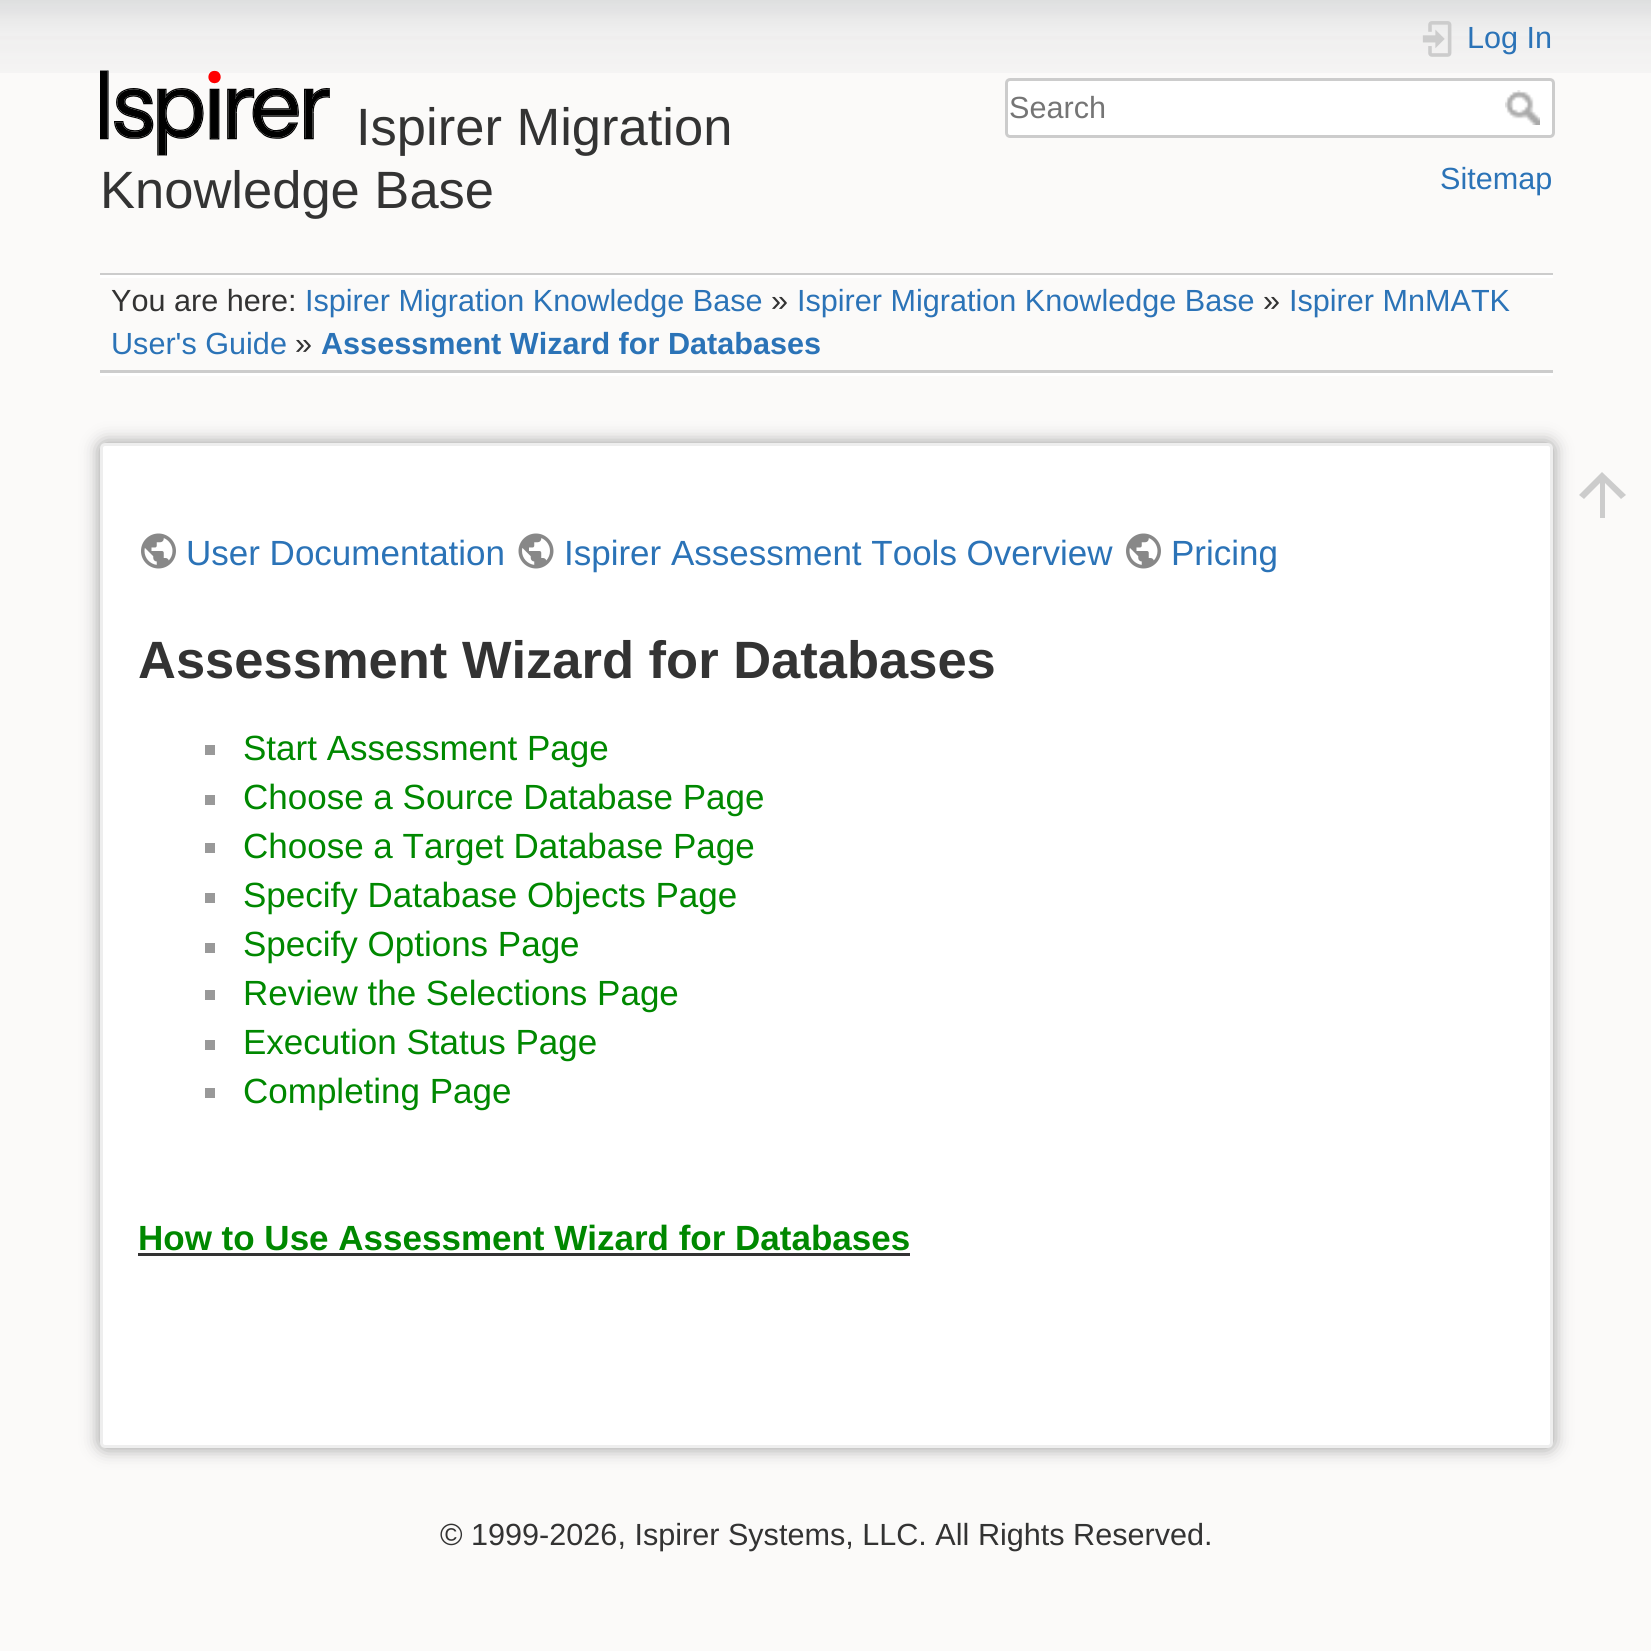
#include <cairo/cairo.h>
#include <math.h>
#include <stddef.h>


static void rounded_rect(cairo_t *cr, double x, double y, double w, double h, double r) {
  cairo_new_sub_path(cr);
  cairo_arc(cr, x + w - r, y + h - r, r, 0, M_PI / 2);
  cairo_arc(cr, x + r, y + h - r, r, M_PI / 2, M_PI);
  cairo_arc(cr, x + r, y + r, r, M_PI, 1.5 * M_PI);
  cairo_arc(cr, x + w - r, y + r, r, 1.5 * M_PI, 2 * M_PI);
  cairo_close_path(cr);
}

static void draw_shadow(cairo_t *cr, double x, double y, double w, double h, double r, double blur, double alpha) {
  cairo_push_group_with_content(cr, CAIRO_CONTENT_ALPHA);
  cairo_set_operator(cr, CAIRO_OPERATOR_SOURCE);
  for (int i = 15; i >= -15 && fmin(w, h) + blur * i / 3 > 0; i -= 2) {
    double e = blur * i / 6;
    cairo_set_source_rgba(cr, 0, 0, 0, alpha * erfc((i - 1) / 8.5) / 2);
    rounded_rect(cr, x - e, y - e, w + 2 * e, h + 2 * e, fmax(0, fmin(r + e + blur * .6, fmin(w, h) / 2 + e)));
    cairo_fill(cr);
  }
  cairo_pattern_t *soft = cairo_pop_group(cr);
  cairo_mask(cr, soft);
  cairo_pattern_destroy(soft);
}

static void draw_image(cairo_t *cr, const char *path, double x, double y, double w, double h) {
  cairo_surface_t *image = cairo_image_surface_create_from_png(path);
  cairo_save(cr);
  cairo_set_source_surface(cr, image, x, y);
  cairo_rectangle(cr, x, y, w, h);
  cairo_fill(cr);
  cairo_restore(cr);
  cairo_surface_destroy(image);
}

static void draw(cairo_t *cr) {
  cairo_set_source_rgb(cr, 251 / 255.0, 250 / 255.0, 249 / 255.0);
  cairo_paint(cr);
  draw_image(cr, "images/1.png", 0, 0, 1651, 73);
  draw_image(cr, "images/2.png", 100, 70, 230, 86);
  draw_image(cr, "images/3.png", 1422, 21, 30, 36);
  cairo_set_source_rgb(cr, 1, 1, 1);
  rounded_rect(cr, 1006.5, 79.5, 547, 57, 3.5);
  cairo_fill_preserve(cr);
  cairo_set_source_rgb(cr, 204 / 255.0, 204 / 255.0, 204 / 255.0);
  cairo_set_line_width(cr, 3);
  cairo_stroke(cr);
  draw_image(cr, "images/4.png", 1505, 90, 35, 35);
  cairo_rectangle(cr, 100, 273, 1453, 2);
  cairo_fill(cr);
  cairo_set_source_rgb(cr, 1, 1, 1);
  cairo_rectangle(cr, 100, 373, 1453, 3);
  cairo_fill(cr);
  cairo_rectangle(cr, 100, 275, 1453, 3);
  cairo_fill(cr);
  cairo_set_source_rgb(cr, 204 / 255.0, 204 / 255.0, 204 / 255.0);
  cairo_rectangle(cr, 100, 370, 1453, 3);
  cairo_fill(cr);
  cairo_set_source_rgb(cr, 153 / 255.0, 153 / 255.0, 153 / 255.0);
  draw_shadow(cr, 100, 443, 1453, 1005, 5, 9, 1);
  cairo_set_source_rgb(cr, 204 / 255.0, 204 / 255.0, 204 / 255.0);
  cairo_new_path(cr);
  cairo_move_to(cr, 1605, 518);
  cairo_line_to(cr, 1600, 518);
  cairo_line_to(cr, 1600, 483);
  cairo_line_to(cr, 1584, 499);
  cairo_line_to(cr, 1579, 495);
  cairo_line_to(cr, 1602, 472);
  cairo_line_to(cr, 1626, 495);
  cairo_line_to(cr, 1621, 499);
  cairo_line_to(cr, 1605, 483);
  cairo_close_path(cr);
  cairo_fill(cr);
  cairo_set_source_rgb(cr, 1, 1, 1);
  rounded_rect(cr, 101.5, 444.5, 1450, 1002, 3.5);
  cairo_fill_preserve(cr);
  cairo_set_source_rgb(cr, 238 / 255.0, 238 / 255.0, 238 / 255.0);
  cairo_stroke(cr);
  draw_image(cr, "images/5.png", 141, 533, 35, 36);
  draw_image(cr, "images/6.png", 518, 533, 36, 36);
  draw_image(cr, "images/5.png", 1126, 533, 35, 36);
  cairo_set_source_rgb(cr, 153 / 255.0, 153 / 255.0, 153 / 255.0);
  cairo_rectangle(cr, 205, 745, 10, 10);
  cairo_fill(cr);
  cairo_rectangle(cr, 205, 795, 10, 10);
  cairo_fill(cr);
  cairo_rectangle(cr, 205, 843, 10, 10);
  cairo_fill(cr);
  cairo_rectangle(cr, 205, 893, 10, 10);
  cairo_fill(cr);
  cairo_rectangle(cr, 205, 943, 10, 10);
  cairo_fill(cr);
  cairo_rectangle(cr, 205, 990, 10, 10);
  cairo_fill(cr);
  cairo_rectangle(cr, 205, 1040, 10, 10);
  cairo_fill(cr);
  cairo_rectangle(cr, 205, 1088, 10, 10);
  cairo_fill(cr);
  cairo_set_source_rgb(cr, 51 / 255.0, 51 / 255.0, 51 / 255.0);
  cairo_rectangle(cr, 138, 1253, 772, 3);
  cairo_fill(cr);
  cairo_select_font_face(cr, "Liberation Sans", CAIRO_FONT_SLANT_NORMAL, CAIRO_FONT_WEIGHT_NORMAL);
  cairo_set_font_size(cr, 52.5);
  cairo_move_to(cr, 356, 145);
  cairo_show_text(cr, "Ispirer Migration");
  cairo_move_to(cr, 100, 208);
  cairo_show_text(cr, "Knowledge Base");
  cairo_set_font_size(cr, 30.6);
  cairo_set_source_rgb(cr, 43 / 255.0, 115 / 255.0, 183 / 255.0);
  cairo_move_to(cr, 1467, 48);
  cairo_show_text(cr, "Log In");
  cairo_set_source_rgb(cr, 117 / 255.0, 117 / 255.0, 117 / 255.0);
  cairo_move_to(cr, 1009, 118);
  cairo_show_text(cr, "Search");
  cairo_set_source_rgb(cr, 43 / 255.0, 115 / 255.0, 183 / 255.0);
  cairo_move_to(cr, 1440, 189);
  cairo_show_text(cr, "Sitemap");
  cairo_set_source_rgb(cr, 51 / 255.0, 51 / 255.0, 51 / 255.0);
  cairo_move_to(cr, 111, 311);
  cairo_show_text(cr, "You are here:");
  cairo_set_source_rgb(cr, 43 / 255.0, 115 / 255.0, 183 / 255.0);
  cairo_move_to(cr, 305, 311);
  cairo_show_text(cr, "Ispirer Migration Knowledge Base");
  cairo_set_source_rgb(cr, 51 / 255.0, 51 / 255.0, 51 / 255.0);
  cairo_move_to(cr, 771, 311);
  cairo_show_text(cr, "»");
  cairo_set_source_rgb(cr, 43 / 255.0, 115 / 255.0, 183 / 255.0);
  cairo_move_to(cr, 797, 311);
  cairo_show_text(cr, "Ispirer Migration Knowledge Base");
  cairo_set_source_rgb(cr, 51 / 255.0, 51 / 255.0, 51 / 255.0);
  cairo_move_to(cr, 1263, 311);
  cairo_show_text(cr, "»");
  cairo_set_source_rgb(cr, 43 / 255.0, 115 / 255.0, 183 / 255.0);
  cairo_move_to(cr, 1289, 311);
  cairo_show_text(cr, "Ispirer MnMATK");
  cairo_move_to(cr, 111, 354);
  cairo_show_text(cr, "User's Guide");
  cairo_set_source_rgb(cr, 51 / 255.0, 51 / 255.0, 51 / 255.0);
  cairo_move_to(cr, 295, 354);
  cairo_show_text(cr, "»");
  cairo_select_font_face(cr, "Liberation Sans", CAIRO_FONT_SLANT_NORMAL, CAIRO_FONT_WEIGHT_BOLD);
  cairo_set_source_rgb(cr, 43 / 255.0, 115 / 255.0, 183 / 255.0);
  cairo_move_to(cr, 321, 354);
  cairo_show_text(cr, "Assessment Wizard for Databases");
  cairo_select_font_face(cr, "Liberation Sans", CAIRO_FONT_SLANT_NORMAL, CAIRO_FONT_WEIGHT_NORMAL);
  cairo_set_font_size(cr, 35);
  cairo_move_to(cr, 186, 565);
  cairo_show_text(cr, "User Documentation");
  cairo_move_to(cr, 564, 565);
  cairo_show_text(cr, "Ispirer Assessment Tools Overview");
  cairo_move_to(cr, 1171, 565);
  cairo_show_text(cr, "Pricing");
  cairo_select_font_face(cr, "Liberation Sans", CAIRO_FONT_SLANT_NORMAL, CAIRO_FONT_WEIGHT_BOLD);
  cairo_set_font_size(cr, 52.5);
  cairo_set_source_rgb(cr, 51 / 255.0, 51 / 255.0, 51 / 255.0);
  cairo_move_to(cr, 138, 678);
  cairo_show_text(cr, "Assessment Wizard for Databases");
  cairo_select_font_face(cr, "Liberation Sans", CAIRO_FONT_SLANT_NORMAL, CAIRO_FONT_WEIGHT_NORMAL);
  cairo_set_font_size(cr, 35);
  cairo_set_source_rgb(cr, 0, 136 / 255.0, 0);
  cairo_move_to(cr, 243, 760);
  cairo_show_text(cr, "Start Assessment Page");
  cairo_move_to(cr, 243, 809);
  cairo_show_text(cr, "Choose a Source Database Page");
  cairo_move_to(cr, 243, 858);
  cairo_show_text(cr, "Choose a Target Database Page");
  cairo_move_to(cr, 243, 907);
  cairo_show_text(cr, "Specify Database Objects Page");
  cairo_move_to(cr, 243, 956);
  cairo_show_text(cr, "Specify Options Page");
  cairo_move_to(cr, 243, 1005);
  cairo_show_text(cr, "Review the Selections Page");
  cairo_move_to(cr, 243, 1054);
  cairo_show_text(cr, "Execution Status Page");
  cairo_move_to(cr, 243, 1103);
  cairo_show_text(cr, "Completing Page");
  cairo_select_font_face(cr, "Liberation Sans", CAIRO_FONT_SLANT_NORMAL, CAIRO_FONT_WEIGHT_BOLD);
  cairo_move_to(cr, 138, 1250);
  cairo_show_text(cr, "How to Use Assessment Wizard for Databases");
  cairo_select_font_face(cr, "Liberation Sans", CAIRO_FONT_SLANT_NORMAL, CAIRO_FONT_WEIGHT_NORMAL);
  cairo_set_font_size(cr, 30.6);
  cairo_set_source_rgb(cr, 51 / 255.0, 51 / 255.0, 51 / 255.0);
  cairo_move_to(cr, 440, 1545);
  cairo_show_text(cr, "© 1999-2026, Ispirer Systems, LLC. All Rights Reserved.");
}

int main(void) {
  cairo_surface_t *surface = cairo_image_surface_create(CAIRO_FORMAT_RGB24, 1651, 1651);
  cairo_t *cr = cairo_create(surface);
  cairo_font_options_t *options = cairo_font_options_create();
  cairo_font_options_set_hint_metrics(options, CAIRO_HINT_METRICS_OFF);
  cairo_font_options_set_hint_style(options, CAIRO_HINT_STYLE_NONE);
  cairo_set_font_options(cr, options);
  cairo_set_miter_limit(cr, 4);
  draw(cr);
  cairo_surface_write_to_png(surface, "out.png");
  cairo_font_options_destroy(options);
  cairo_destroy(cr);
  cairo_surface_destroy(surface);
  return 0;
}
